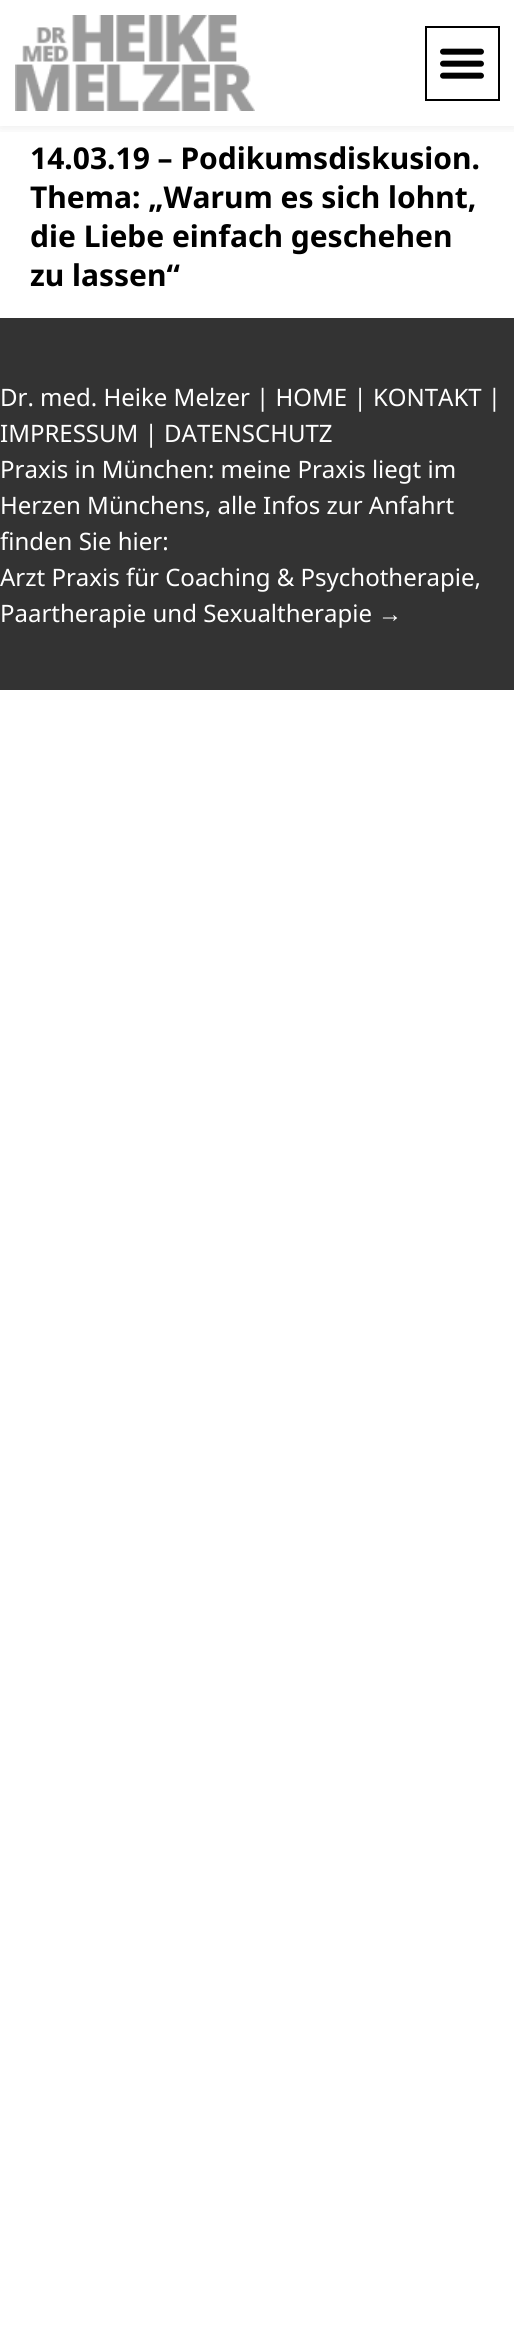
#include <cairo/cairo.h>
#include <math.h>
#include <stddef.h>


static void rounded_rect(cairo_t *cr, double x, double y, double w, double h, double r) {
  cairo_new_sub_path(cr);
  cairo_arc(cr, x + w - r, y + h - r, r, 0, M_PI / 2);
  cairo_arc(cr, x + r, y + h - r, r, M_PI / 2, M_PI);
  cairo_arc(cr, x + r, y + r, r, M_PI, 1.5 * M_PI);
  cairo_arc(cr, x + w - r, y + r, r, 1.5 * M_PI, 2 * M_PI);
  cairo_close_path(cr);
}

static void draw_shadow(cairo_t *cr, double x, double y, double w, double h, double r, double blur, double alpha) {
  cairo_push_group_with_content(cr, CAIRO_CONTENT_ALPHA);
  cairo_set_operator(cr, CAIRO_OPERATOR_SOURCE);
  for (int i = 15; i >= -15 && fmin(w, h) + blur * i / 3 > 0; i -= 2) {
    double e = blur * i / 6;
    cairo_set_source_rgba(cr, 0, 0, 0, alpha * erfc((i - 1) / 8.5) / 2);
    rounded_rect(cr, x - e, y - e, w + 2 * e, h + 2 * e, fmax(0, fmin(r + e + blur * .6, fmin(w, h) / 2 + e)));
    cairo_fill(cr);
  }
  cairo_pattern_t *soft = cairo_pop_group(cr);
  cairo_mask(cr, soft);
  cairo_pattern_destroy(soft);
}

static void draw_image(cairo_t *cr, const char *path, double x, double y, double w, double h) {
  cairo_surface_t *image = cairo_image_surface_create_from_png(path);
  cairo_save(cr);
  cairo_set_source_surface(cr, image, x, y);
  cairo_rectangle(cr, x, y, w, h);
  cairo_fill(cr);
  cairo_restore(cr);
  cairo_surface_destroy(image);
}

static void draw(cairo_t *cr) {
  cairo_set_source_rgb(cr, 1, 1, 1);
  cairo_paint(cr);
  cairo_save(cr);
  cairo_rectangle(cr, 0, 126, 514, 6);
  cairo_clip(cr);
  cairo_set_source_rgb(cr, 0, 0, 0);
  draw_shadow(cr, 0, 0, 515, 126, 0, 7.5, 0.09);
  cairo_restore(cr);
  draw_image(cr, "images/1.png", 15, 15, 240, 96);
  cairo_rectangle(cr, 426, 27, 73, 73);
  cairo_set_source_rgb(cr, 0, 0, 0);
  cairo_stroke(cr);
  draw_image(cr, "images/2.png", 440, 48, 44, 31);
  cairo_set_source_rgb(cr, 51 / 255.0, 51 / 255.0, 51 / 255.0);
  cairo_rectangle(cr, 0, 318, 514, 372);
  cairo_fill(cr);
  cairo_select_font_face(cr, "Noto Sans", CAIRO_FONT_SLANT_NORMAL, CAIRO_FONT_WEIGHT_BOLD);
  cairo_set_font_size(cr, 30);
  cairo_set_source_rgb(cr, 0, 0, 0);
  cairo_move_to(cr, 30, 169);
  cairo_show_text(cr, "14.03.19 – Podikumsdiskusion.");
  cairo_move_to(cr, 30, 208);
  cairo_show_text(cr, "Thema: „Warum es sich lohnt,");
  cairo_move_to(cr, 30, 247);
  cairo_show_text(cr, "die Liebe einfach geschehen");
  cairo_move_to(cr, 30, 286);
  cairo_show_text(cr, "zu lassen“");
  cairo_select_font_face(cr, "Noto Sans", CAIRO_FONT_SLANT_NORMAL, CAIRO_FONT_WEIGHT_NORMAL);
  cairo_set_font_size(cr, 24);
  cairo_set_source_rgb(cr, 1, 1, 1);
  cairo_move_to(cr, 0, 406);
  cairo_show_text(cr, "Dr. med. Heike Melzer | HOME | KONTAKT |");
  cairo_move_to(cr, 0, 442);
  cairo_show_text(cr, "IMPRESSUM | DATENSCHUTZ");
  cairo_move_to(cr, 0, 478);
  cairo_show_text(cr, "Praxis in München: meine Praxis liegt im");
  cairo_move_to(cr, 0, 514);
  cairo_show_text(cr, "Herzen Münchens, alle Infos zur Anfahrt");
  cairo_move_to(cr, 0, 550);
  cairo_show_text(cr, "finden Sie hier:");
  cairo_move_to(cr, 0, 586);
  cairo_show_text(cr, "Arzt Praxis für Coaching & Psychotherapie,");
  cairo_move_to(cr, 0, 622);
  cairo_show_text(cr, "Paartherapie und Sexualtherapie");
  cairo_select_font_face(cr, "Liberation Sans", CAIRO_FONT_SLANT_NORMAL, CAIRO_FONT_WEIGHT_NORMAL);
  cairo_move_to(cr, 378, 622);
  cairo_show_text(cr, "→");
}

int main(void) {
  cairo_surface_t *surface = cairo_image_surface_create(CAIRO_FORMAT_RGB24, 514, 2329);
  cairo_t *cr = cairo_create(surface);
  cairo_font_options_t *options = cairo_font_options_create();
  cairo_font_options_set_hint_metrics(options, CAIRO_HINT_METRICS_OFF);
  cairo_font_options_set_hint_style(options, CAIRO_HINT_STYLE_NONE);
  cairo_set_font_options(cr, options);
  cairo_set_miter_limit(cr, 4);
  draw(cr);
  cairo_surface_write_to_png(surface, "out.png");
  cairo_font_options_destroy(options);
  cairo_destroy(cr);
  cairo_surface_destroy(surface);
  return 0;
}
